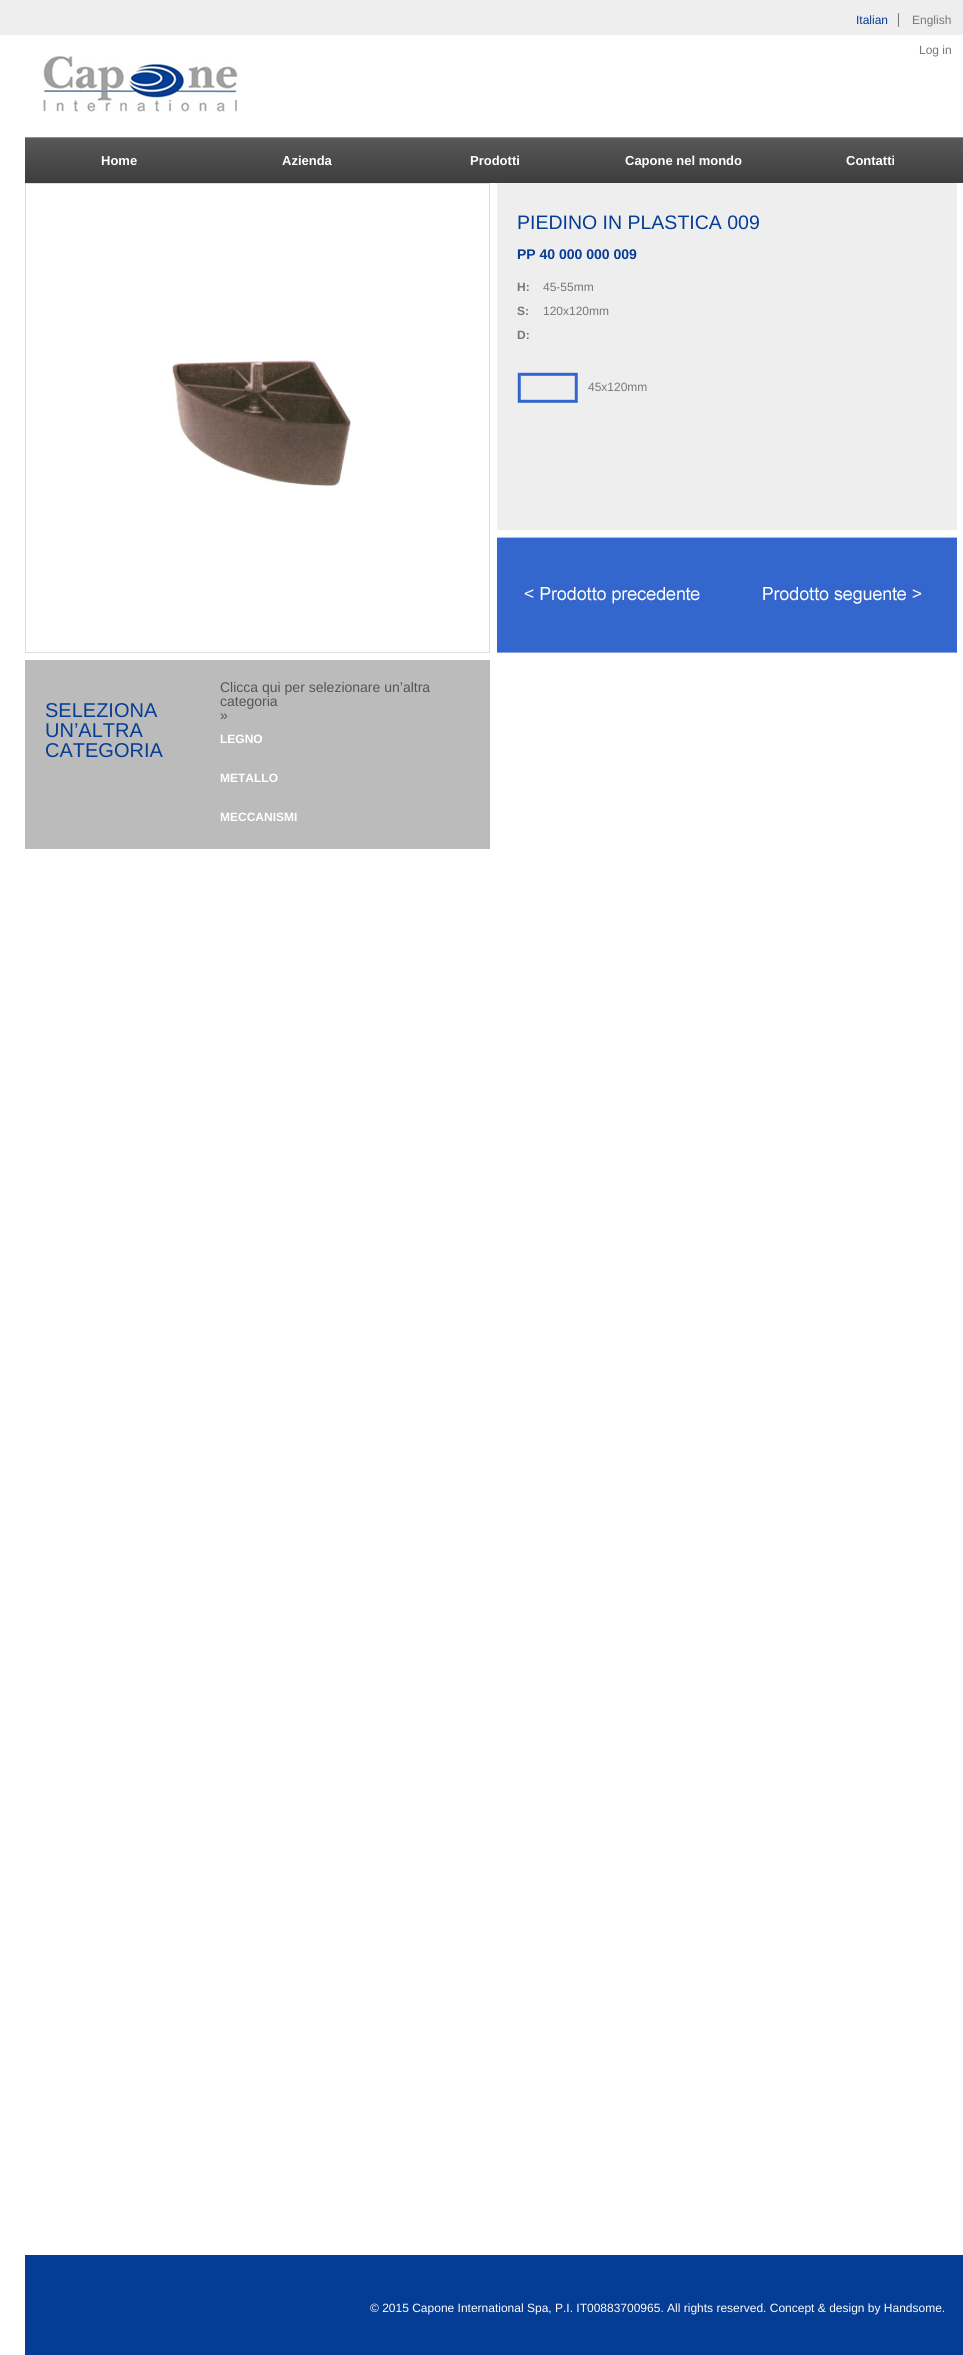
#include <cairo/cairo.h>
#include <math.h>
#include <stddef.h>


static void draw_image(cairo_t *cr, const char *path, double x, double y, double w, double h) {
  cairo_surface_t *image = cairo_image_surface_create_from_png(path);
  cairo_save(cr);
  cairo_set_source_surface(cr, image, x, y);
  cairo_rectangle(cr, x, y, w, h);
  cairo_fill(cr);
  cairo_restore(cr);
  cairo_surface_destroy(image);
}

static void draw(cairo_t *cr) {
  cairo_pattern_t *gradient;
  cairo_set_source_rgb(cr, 1, 1, 1);
  cairo_paint(cr);
  cairo_set_source_rgb(cr, 238 / 255.0, 238 / 255.0, 238 / 255.0);
  cairo_rectangle(cr, 0, 0, 963, 35);
  cairo_fill(cr);
  cairo_set_source_rgb(cr, 119 / 255.0, 119 / 255.0, 119 / 255.0);
  cairo_rectangle(cr, 898, 13, 1, 14);
  cairo_fill(cr);
  draw_image(cr, "images/1.png", 41, 56, 198, 56);
  gradient = cairo_pattern_create_linear(495, 138, 495, 183);
  cairo_pattern_add_color_stop_rgba(gradient, 0, 88 / 255.0, 88 / 255.0, 88 / 255.0, 1);
  cairo_pattern_add_color_stop_rgba(gradient, 1, 61 / 255.0, 61 / 255.0, 61 / 255.0, 1);
  cairo_set_source(cr, gradient);
  cairo_pattern_destroy(gradient);
  cairo_rectangle(cr, 25, 138, 938, 45);
  cairo_fill(cr);
  cairo_set_source_rgb(cr, 143 / 255.0, 143 / 255.0, 143 / 255.0);
  cairo_rectangle(cr, 25, 137, 938, 1);
  cairo_fill(cr);
  cairo_set_source_rgb(cr, 238 / 255.0, 238 / 255.0, 238 / 255.0);
  cairo_rectangle(cr, 497, 183, 460, 347);
  cairo_fill(cr);
  draw_image(cr, "images/2.png", 517, 372, 61, 31);
  draw_image(cr, "images/3.png", 497, 537, 230, 116);
  draw_image(cr, "images/4.png", 727, 537, 230, 116);
  cairo_rectangle(cr, 25.5, 183.5, 464, 469);
  cairo_set_source_rgb(cr, 221 / 255.0, 221 / 255.0, 221 / 255.0);
  cairo_set_line_width(cr, 1);
  cairo_stroke(cr);
  draw_image(cr, "images/5.png", 171, 360, 180, 127);
  cairo_set_source_rgb(cr, 187 / 255.0, 187 / 255.0, 187 / 255.0);
  cairo_rectangle(cr, 25, 660, 465, 189);
  cairo_fill(cr);
  cairo_set_source_rgb(cr, 5 / 255.0, 61 / 255.0, 149 / 255.0);
  cairo_rectangle(cr, 25, 2255, 938, 100);
  cairo_fill(cr);
  cairo_select_font_face(cr, "Liberation Sans", CAIRO_FONT_SLANT_NORMAL, CAIRO_FONT_WEIGHT_NORMAL);
  cairo_set_font_size(cr, 12);
  cairo_move_to(cr, 856, 24);
  cairo_show_text(cr, "Italian");
  cairo_set_source_rgb(cr, 119 / 255.0, 119 / 255.0, 119 / 255.0);
  cairo_move_to(cr, 912, 24);
  cairo_show_text(cr, "English");
  cairo_move_to(cr, 919, 54);
  cairo_show_text(cr, "Log in");
  cairo_select_font_face(cr, "Liberation Sans", CAIRO_FONT_SLANT_NORMAL, CAIRO_FONT_WEIGHT_BOLD);
  cairo_set_font_size(cr, 13);
  cairo_set_source_rgb(cr, 1, 1, 1);
  cairo_move_to(cr, 101, 165);
  cairo_show_text(cr, "Home");
  cairo_move_to(cr, 282, 165);
  cairo_show_text(cr, "Azienda");
  cairo_move_to(cr, 470, 165);
  cairo_show_text(cr, "Prodotti");
  cairo_move_to(cr, 625, 165);
  cairo_show_text(cr, "Capone nel mondo");
  cairo_move_to(cr, 846, 165);
  cairo_show_text(cr, "Contatti");
  cairo_select_font_face(cr, "Liberation Sans", CAIRO_FONT_SLANT_NORMAL, CAIRO_FONT_WEIGHT_NORMAL);
  cairo_set_font_size(cr, 19.5);
  cairo_set_source_rgb(cr, 5 / 255.0, 61 / 255.0, 149 / 255.0);
  cairo_move_to(cr, 517, 229);
  cairo_show_text(cr, "PIEDINO IN PLASTICA 009");
  cairo_select_font_face(cr, "Liberation Sans", CAIRO_FONT_SLANT_NORMAL, CAIRO_FONT_WEIGHT_BOLD);
  cairo_set_font_size(cr, 14);
  cairo_move_to(cr, 517, 259);
  cairo_show_text(cr, "PP 40 000 000 009");
  cairo_set_font_size(cr, 12);
  cairo_set_source_rgb(cr, 119 / 255.0, 119 / 255.0, 119 / 255.0);
  cairo_move_to(cr, 517, 291);
  cairo_show_text(cr, "H:");
  cairo_select_font_face(cr, "Liberation Sans", CAIRO_FONT_SLANT_NORMAL, CAIRO_FONT_WEIGHT_NORMAL);
  cairo_move_to(cr, 543, 291);
  cairo_show_text(cr, "45-55mm");
  cairo_select_font_face(cr, "Liberation Sans", CAIRO_FONT_SLANT_NORMAL, CAIRO_FONT_WEIGHT_BOLD);
  cairo_move_to(cr, 517, 315);
  cairo_show_text(cr, "S:");
  cairo_select_font_face(cr, "Liberation Sans", CAIRO_FONT_SLANT_NORMAL, CAIRO_FONT_WEIGHT_NORMAL);
  cairo_move_to(cr, 543, 315);
  cairo_show_text(cr, "120x120mm");
  cairo_select_font_face(cr, "Liberation Sans", CAIRO_FONT_SLANT_NORMAL, CAIRO_FONT_WEIGHT_BOLD);
  cairo_move_to(cr, 517, 339);
  cairo_show_text(cr, "D:");
  cairo_select_font_face(cr, "Liberation Sans", CAIRO_FONT_SLANT_NORMAL, CAIRO_FONT_WEIGHT_NORMAL);
  cairo_move_to(cr, 588, 391);
  cairo_show_text(cr, "45x120mm");
  cairo_set_font_size(cr, 20);
  cairo_set_source_rgb(cr, 5 / 255.0, 61 / 255.0, 149 / 255.0);
  cairo_move_to(cr, 45, 717);
  cairo_show_text(cr, "SELEZIONA");
  cairo_move_to(cr, 45, 737);
  cairo_show_text(cr, "UN’ALTRA");
  cairo_move_to(cr, 45, 757);
  cairo_show_text(cr, "CATEGORIA");
  cairo_set_font_size(cr, 14);
  cairo_set_source_rgb(cr, 85 / 255.0, 85 / 255.0, 85 / 255.0);
  cairo_move_to(cr, 220, 692);
  cairo_show_text(cr, "Clicca qui per selezionare un’altra");
  cairo_move_to(cr, 220, 706);
  cairo_show_text(cr, "categoria");
  cairo_move_to(cr, 220, 720);
  cairo_show_text(cr, "»");
  cairo_select_font_face(cr, "Liberation Sans", CAIRO_FONT_SLANT_NORMAL, CAIRO_FONT_WEIGHT_BOLD);
  cairo_set_font_size(cr, 12);
  cairo_set_source_rgb(cr, 1, 1, 1);
  cairo_move_to(cr, 220, 743);
  cairo_show_text(cr, "LEGNO");
  cairo_move_to(cr, 220, 782);
  cairo_show_text(cr, "METALLO");
  cairo_move_to(cr, 220, 821);
  cairo_show_text(cr, "MECCANISMI");
  cairo_select_font_face(cr, "Liberation Sans", CAIRO_FONT_SLANT_NORMAL, CAIRO_FONT_WEIGHT_NORMAL);
  cairo_move_to(cr, 370, 2312);
  cairo_show_text(cr, "© 2015 Capone International Spa, P.I. IT00883700965. All rights reserved. Concept & design by Handsome.");
}

int main(void) {
  cairo_surface_t *surface = cairo_image_surface_create(CAIRO_FORMAT_RGB24, 963, 2355);
  cairo_t *cr = cairo_create(surface);
  cairo_font_options_t *options = cairo_font_options_create();
  cairo_font_options_set_hint_metrics(options, CAIRO_HINT_METRICS_OFF);
  cairo_font_options_set_hint_style(options, CAIRO_HINT_STYLE_NONE);
  cairo_set_font_options(cr, options);
  cairo_set_miter_limit(cr, 4);
  draw(cr);
  cairo_surface_write_to_png(surface, "out.png");
  cairo_font_options_destroy(options);
  cairo_destroy(cr);
  cairo_surface_destroy(surface);
  return 0;
}
